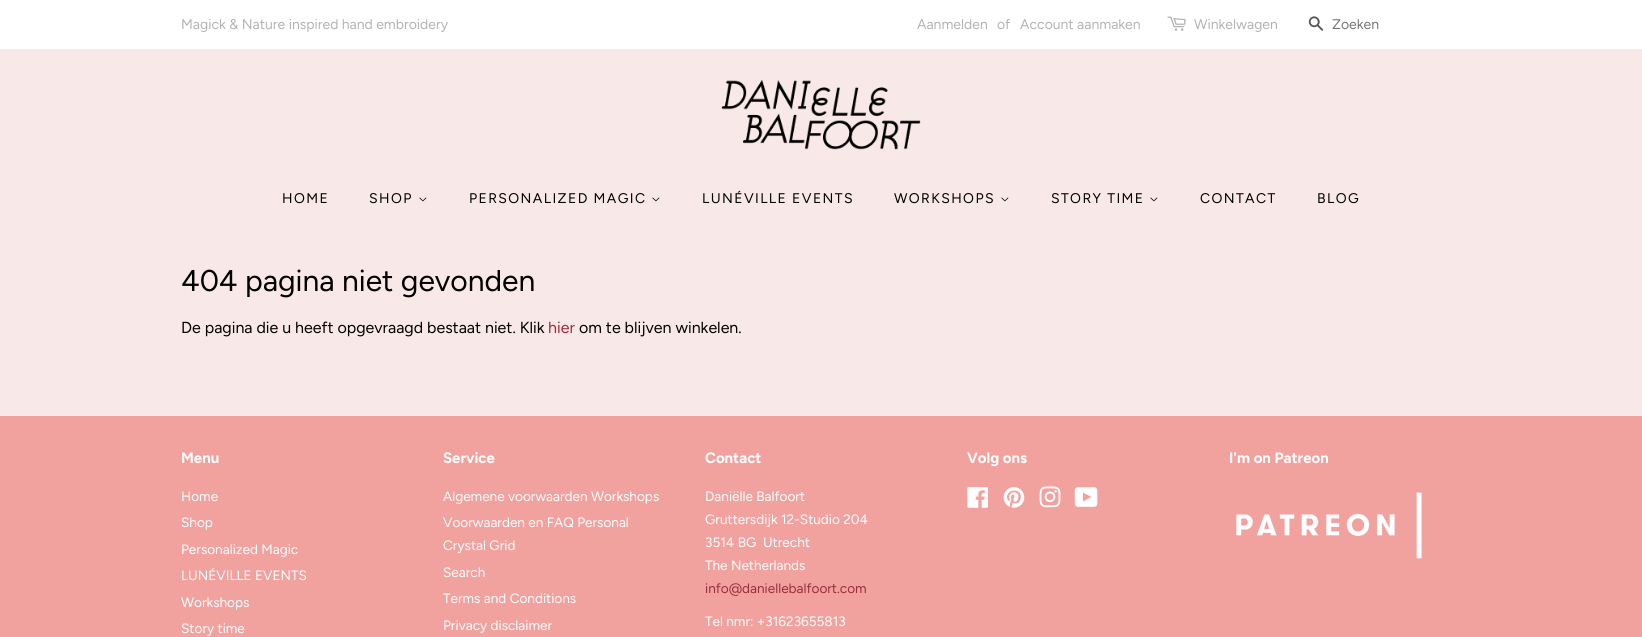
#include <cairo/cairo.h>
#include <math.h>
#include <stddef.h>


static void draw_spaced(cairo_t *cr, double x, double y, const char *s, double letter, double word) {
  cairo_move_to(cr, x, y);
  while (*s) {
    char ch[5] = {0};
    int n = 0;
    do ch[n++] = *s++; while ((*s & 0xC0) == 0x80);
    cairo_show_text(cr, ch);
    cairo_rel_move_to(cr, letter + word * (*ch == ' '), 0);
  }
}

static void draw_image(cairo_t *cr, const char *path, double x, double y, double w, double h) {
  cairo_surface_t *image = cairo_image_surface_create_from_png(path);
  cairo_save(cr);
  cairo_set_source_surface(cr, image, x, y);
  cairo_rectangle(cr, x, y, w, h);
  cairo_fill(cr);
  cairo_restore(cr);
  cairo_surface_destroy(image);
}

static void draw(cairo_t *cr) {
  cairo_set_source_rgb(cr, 249 / 255.0, 232 / 255.0, 232 / 255.0);
  cairo_paint(cr);
  cairo_set_source_rgb(cr, 1, 1, 1);
  cairo_rectangle(cr, 0, 0, 1642, 49);
  cairo_fill(cr);
  draw_image(cr, "images/1.png", 1167, 16, 19, 15);
  draw_image(cr, "images/2.png", 1308, 16, 16, 15);
  draw_image(cr, "images/3.png", 721, 80, 200, 70);
  draw_image(cr, "images/4.png", 419, 197, 8, 5);
  draw_image(cr, "images/4.png", 652, 197, 8, 5);
  draw_image(cr, "images/4.png", 1001, 197, 8, 5);
  draw_image(cr, "images/4.png", 1150, 197, 8, 5);
  cairo_set_source_rgb(cr, 241 / 255.0, 162 / 255.0, 159 / 255.0);
  cairo_rectangle(cr, 0, 416, 1642, 221);
  cairo_fill(cr);
  draw_image(cr, "images/5.png", 967, 487, 21, 21);
  draw_image(cr, "images/6.png", 1003, 487, 22, 21);
  draw_image(cr, "images/7.png", 1039, 486, 22, 22);
  draw_image(cr, "images/8.png", 1074, 487, 24, 20);
  draw_image(cr, "images/9.png", 1236, 492, 186, 67);
  cairo_select_font_face(cr, "Figtree", CAIRO_FONT_SLANT_NORMAL, CAIRO_FONT_WEIGHT_NORMAL);
  cairo_set_font_size(cr, 14);
  cairo_set_source_rgb(cr, 179 / 255.0, 179 / 255.0, 179 / 255.0);
  cairo_move_to(cr, 181, 29);
  cairo_show_text(cr, "Magick & Nature inspired hand embroidery");
  cairo_move_to(cr, 917, 29);
  cairo_show_text(cr, "Aanmelden");
  cairo_move_to(cr, 997, 29);
  cairo_show_text(cr, "of");
  cairo_move_to(cr, 1020, 29);
  cairo_show_text(cr, "Account aanmaken");
  cairo_move_to(cr, 1194, 29);
  cairo_show_text(cr, "Winkelwagen");
  cairo_set_source_rgb(cr, 117 / 255.0, 117 / 255.0, 117 / 255.0);
  cairo_move_to(cr, 1332, 29);
  cairo_show_text(cr, "Zoeken");
  cairo_set_source_rgb(cr, 0, 0, 0);
  draw_spaced(cr, 282, 203, "HOME", 1.4, 0);
  draw_spaced(cr, 369, 203, "SHOP", 1.4, 0);
  draw_spaced(cr, 469, 203, "PERSONALIZED MAGIC", 1.4, 0);
  draw_spaced(cr, 702, 203, "LUNÉVILLE EVENTS", 1.4, 0);
  draw_spaced(cr, 894, 203, "WORKSHOPS", 1.4, 0);
  draw_spaced(cr, 1051, 203, "STORY TIME", 1.4, 0);
  draw_spaced(cr, 1200, 203, "CONTACT", 1.4, 0);
  draw_spaced(cr, 1317, 203, "BLOG", 1.4, 0);
  cairo_set_font_size(cr, 30);
  cairo_move_to(cr, 181, 291);
  cairo_show_text(cr, "404 pagina niet gevonden");
  cairo_set_font_size(cr, 16);
  cairo_move_to(cr, 181, 333);
  cairo_show_text(cr, "De pagina die u heeft opgevraagd bestaat niet. Klik");
  cairo_set_source_rgb(cr, 155 / 255.0, 44 / 255.0, 60 / 255.0);
  cairo_move_to(cr, 548, 333);
  cairo_show_text(cr, "hier");
  cairo_set_source_rgb(cr, 0, 0, 0);
  cairo_move_to(cr, 579, 333);
  cairo_show_text(cr, "om te blijven winkelen.");
  cairo_select_font_face(cr, "Figtree", CAIRO_FONT_SLANT_NORMAL, CAIRO_FONT_WEIGHT_BOLD);
  cairo_set_font_size(cr, 15);
  cairo_set_source_rgb(cr, 1, 1, 1);
  cairo_move_to(cr, 181, 463);
  cairo_show_text(cr, "Menu");
  cairo_select_font_face(cr, "Figtree", CAIRO_FONT_SLANT_NORMAL, CAIRO_FONT_WEIGHT_NORMAL);
  cairo_set_font_size(cr, 13.6);
  cairo_move_to(cr, 181, 501);
  cairo_show_text(cr, "Home");
  cairo_move_to(cr, 181, 527);
  cairo_show_text(cr, "Shop");
  cairo_move_to(cr, 181, 554);
  cairo_show_text(cr, "Personalized Magic");
  cairo_move_to(cr, 181, 580);
  cairo_show_text(cr, "LUNÉVILLE EVENTS");
  cairo_move_to(cr, 181, 607);
  cairo_show_text(cr, "Workshops");
  cairo_move_to(cr, 181, 633);
  cairo_show_text(cr, "Story time");
  cairo_select_font_face(cr, "Figtree", CAIRO_FONT_SLANT_NORMAL, CAIRO_FONT_WEIGHT_BOLD);
  cairo_set_font_size(cr, 15);
  cairo_move_to(cr, 443, 463);
  cairo_show_text(cr, "Service");
  cairo_select_font_face(cr, "Figtree", CAIRO_FONT_SLANT_NORMAL, CAIRO_FONT_WEIGHT_NORMAL);
  cairo_set_font_size(cr, 13.6);
  cairo_move_to(cr, 443, 501);
  cairo_show_text(cr, "Algemene voorwaarden Workshops");
  cairo_move_to(cr, 443, 527);
  cairo_show_text(cr, "Voorwaarden en FAQ Personal");
  cairo_move_to(cr, 443, 550);
  cairo_show_text(cr, "Crystal Grid");
  cairo_move_to(cr, 443, 577);
  cairo_show_text(cr, "Search");
  cairo_move_to(cr, 443, 603);
  cairo_show_text(cr, "Terms and Conditions");
  cairo_move_to(cr, 443, 630);
  cairo_show_text(cr, "Privacy disclaimer");
  cairo_select_font_face(cr, "Figtree", CAIRO_FONT_SLANT_NORMAL, CAIRO_FONT_WEIGHT_BOLD);
  cairo_set_font_size(cr, 15);
  cairo_move_to(cr, 705, 463);
  cairo_show_text(cr, "Contact");
  cairo_select_font_face(cr, "Figtree", CAIRO_FONT_SLANT_NORMAL, CAIRO_FONT_WEIGHT_NORMAL);
  cairo_set_font_size(cr, 13.6);
  cairo_move_to(cr, 705, 501);
  cairo_show_text(cr, "Daniëlle Balfoort");
  cairo_move_to(cr, 705, 524);
  cairo_show_text(cr, "Gruttersdijk 12-Studio 204");
  cairo_move_to(cr, 705, 547);
  cairo_show_text(cr, "3514 BG  Utrecht");
  cairo_move_to(cr, 705, 570);
  cairo_show_text(cr, "The Netherlands");
  cairo_set_source_rgb(cr, 155 / 255.0, 44 / 255.0, 60 / 255.0);
  cairo_move_to(cr, 705, 593);
  cairo_show_text(cr, "info@daniellebalfoort.com");
  cairo_set_source_rgb(cr, 1, 1, 1);
  cairo_move_to(cr, 705, 626);
  cairo_show_text(cr, "Tel nmr: +31623655813");
  cairo_select_font_face(cr, "Figtree", CAIRO_FONT_SLANT_NORMAL, CAIRO_FONT_WEIGHT_BOLD);
  cairo_set_font_size(cr, 15);
  cairo_move_to(cr, 967, 463);
  cairo_show_text(cr, "Volg ons");
  cairo_move_to(cr, 1229, 463);
  cairo_show_text(cr, "I'm on Patreon");
}

int main(void) {
  cairo_surface_t *surface = cairo_image_surface_create(CAIRO_FORMAT_RGB24, 1642, 637);
  cairo_t *cr = cairo_create(surface);
  cairo_font_options_t *options = cairo_font_options_create();
  cairo_font_options_set_hint_metrics(options, CAIRO_HINT_METRICS_OFF);
  cairo_font_options_set_hint_style(options, CAIRO_HINT_STYLE_NONE);
  cairo_set_font_options(cr, options);
  cairo_set_miter_limit(cr, 4);
  draw(cr);
  cairo_surface_write_to_png(surface, "out.png");
  cairo_font_options_destroy(options);
  cairo_destroy(cr);
  cairo_surface_destroy(surface);
  return 0;
}
